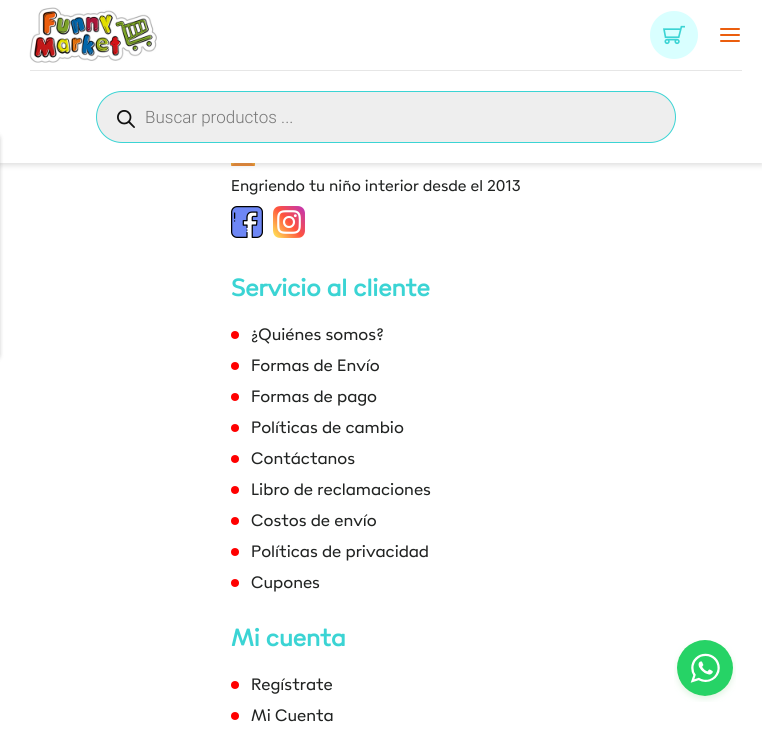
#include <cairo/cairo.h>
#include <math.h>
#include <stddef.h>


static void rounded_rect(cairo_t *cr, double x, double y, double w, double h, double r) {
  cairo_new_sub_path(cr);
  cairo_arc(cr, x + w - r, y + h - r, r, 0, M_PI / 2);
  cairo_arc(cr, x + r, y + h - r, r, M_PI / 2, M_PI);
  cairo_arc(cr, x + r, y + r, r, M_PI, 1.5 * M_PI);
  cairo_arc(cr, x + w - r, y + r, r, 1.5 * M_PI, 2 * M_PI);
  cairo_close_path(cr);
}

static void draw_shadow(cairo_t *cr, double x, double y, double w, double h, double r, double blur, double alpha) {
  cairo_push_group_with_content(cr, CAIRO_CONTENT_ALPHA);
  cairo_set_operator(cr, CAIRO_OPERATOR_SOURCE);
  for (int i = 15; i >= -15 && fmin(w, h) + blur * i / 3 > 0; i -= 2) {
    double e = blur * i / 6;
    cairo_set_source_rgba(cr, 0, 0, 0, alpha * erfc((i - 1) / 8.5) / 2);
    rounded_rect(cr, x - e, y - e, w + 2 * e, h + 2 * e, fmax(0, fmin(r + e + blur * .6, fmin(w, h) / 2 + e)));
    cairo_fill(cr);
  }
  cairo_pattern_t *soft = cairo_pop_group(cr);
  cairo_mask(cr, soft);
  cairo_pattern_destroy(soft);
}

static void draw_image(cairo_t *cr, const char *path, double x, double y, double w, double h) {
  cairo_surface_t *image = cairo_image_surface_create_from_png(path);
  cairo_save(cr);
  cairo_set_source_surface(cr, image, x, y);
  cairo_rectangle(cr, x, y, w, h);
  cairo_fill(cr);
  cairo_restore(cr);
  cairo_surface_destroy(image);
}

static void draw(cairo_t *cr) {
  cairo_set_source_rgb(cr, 1, 1, 1);
  cairo_paint(cr);
  draw_image(cr, "images/4.png", 231, 163, 24, 3);
  cairo_set_source_rgb(cr, 150 / 255.0, 150 / 255.0, 150 / 255.0);
  draw_shadow(cr, 0, 2, 762, 163, 0, 3, 0.33);
  cairo_set_source_rgb(cr, 1, 1, 1);
  cairo_rectangle(cr, 0, 0, 762, 163);
  cairo_fill(cr);
  draw_image(cr, "images/1.png", 29, 7, 128, 56);
  cairo_set_source_rgb(cr, 217 / 255.0, 1, 1);
  cairo_arc(cr, 674, 35, 24, 0, 2 * M_PI);
  cairo_fill(cr);
  draw_image(cr, "images/2.png", 663, 25, 22, 20);
  cairo_set_source_rgb(cr, 235 / 255.0, 94 / 255.0, 14 / 255.0);
  rounded_rect(cr, 720, 28, 20, 2, 1);
  cairo_fill(cr);
  rounded_rect(cr, 720, 34, 20, 2, 1);
  cairo_fill(cr);
  rounded_rect(cr, 720, 40, 20, 2, 1);
  cairo_fill(cr);
  cairo_set_source_rgb(cr, 230 / 255.0, 230 / 255.0, 230 / 255.0);
  cairo_rectangle(cr, 30, 70, 712, 1);
  cairo_fill(cr);
  cairo_set_source_rgb(cr, 238 / 255.0, 238 / 255.0, 238 / 255.0);
  rounded_rect(cr, 96.5, 91.5, 579, 51, 25.5);
  cairo_fill_preserve(cr);
  cairo_set_source_rgb(cr, 59 / 255.0, 212 / 255.0, 212 / 255.0);
  cairo_set_line_width(cr, 1);
  cairo_stroke(cr);
  draw_image(cr, "images/3.png", 117, 110, 18, 18);
  cairo_set_source_rgb(cr, 0, 0, 0);
  draw_shadow(cr, -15, 133, 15, 228, 9, 2, 0.2);
  draw_image(cr, "images/5.png", 231, 206, 32, 32);
  draw_image(cr, "images/6.png", 273, 206, 32, 32);
  cairo_set_source_rgb(cr, 1, 0, 0);
  cairo_arc(cr, 235, 335, 4, 0, 2 * M_PI);
  cairo_fill(cr);
  cairo_arc(cr, 235, 366, 4, 0, 2 * M_PI);
  cairo_fill(cr);
  cairo_arc(cr, 235, 397, 4, 0, 2 * M_PI);
  cairo_fill(cr);
  cairo_arc(cr, 235, 428, 4, 0, 2 * M_PI);
  cairo_fill(cr);
  cairo_arc(cr, 235, 459, 4, 0, 2 * M_PI);
  cairo_fill(cr);
  cairo_arc(cr, 235, 490, 4, 0, 2 * M_PI);
  cairo_fill(cr);
  cairo_arc(cr, 235, 521, 4, 0, 2 * M_PI);
  cairo_fill(cr);
  cairo_arc(cr, 235, 552, 4, 0, 2 * M_PI);
  cairo_fill(cr);
  cairo_arc(cr, 235, 583, 4, 0, 2 * M_PI);
  cairo_fill(cr);
  cairo_arc(cr, 235, 685, 4, 0, 2 * M_PI);
  cairo_fill(cr);
  cairo_arc(cr, 235, 716, 4, 0, 2 * M_PI);
  cairo_fill(cr);
  draw_image(cr, "images/7.png", 674, 640, 62, 62);
  cairo_select_font_face(cr, "Roboto Light", CAIRO_FONT_SLANT_NORMAL, CAIRO_FONT_WEIGHT_NORMAL);
  cairo_set_font_size(cr, 17);
  cairo_set_source_rgb(cr, 119 / 255.0, 119 / 255.0, 119 / 255.0);
  cairo_move_to(cr, 145, 123);
  cairo_show_text(cr, "Buscar productos ...");
  cairo_select_font_face(cr, "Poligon", CAIRO_FONT_SLANT_NORMAL, CAIRO_FONT_WEIGHT_NORMAL);
  cairo_set_source_rgb(cr, 33 / 255.0, 35 / 255.0, 34 / 255.0);
  cairo_move_to(cr, 231, 191);
  cairo_show_text(cr, "Engriendo tu niño interior desde el 2013");
  cairo_select_font_face(cr, "Poligon", CAIRO_FONT_SLANT_NORMAL, CAIRO_FONT_WEIGHT_BOLD);
  cairo_set_font_size(cr, 26);
  cairo_set_source_rgb(cr, 59 / 255.0, 212 / 255.0, 212 / 255.0);
  cairo_move_to(cr, 231, 296);
  cairo_show_text(cr, "Servicio al cliente");
  cairo_select_font_face(cr, "Poligon", CAIRO_FONT_SLANT_NORMAL, CAIRO_FONT_WEIGHT_NORMAL);
  cairo_set_font_size(cr, 18);
  cairo_set_source_rgb(cr, 33 / 255.0, 35 / 255.0, 34 / 255.0);
  cairo_move_to(cr, 251, 340);
  cairo_show_text(cr, "¿Quiénes somos?");
  cairo_move_to(cr, 251, 371);
  cairo_show_text(cr, "Formas de Envío");
  cairo_move_to(cr, 251, 402);
  cairo_show_text(cr, "Formas de pago");
  cairo_move_to(cr, 251, 433);
  cairo_show_text(cr, "Políticas de cambio");
  cairo_move_to(cr, 251, 464);
  cairo_show_text(cr, "Contáctanos");
  cairo_move_to(cr, 251, 495);
  cairo_show_text(cr, "Libro de reclamaciones");
  cairo_move_to(cr, 251, 526);
  cairo_show_text(cr, "Costos de envío");
  cairo_move_to(cr, 251, 557);
  cairo_show_text(cr, "Políticas de privacidad");
  cairo_move_to(cr, 251, 588);
  cairo_show_text(cr, "Cupones");
  cairo_select_font_face(cr, "Poligon", CAIRO_FONT_SLANT_NORMAL, CAIRO_FONT_WEIGHT_BOLD);
  cairo_set_font_size(cr, 26);
  cairo_set_source_rgb(cr, 59 / 255.0, 212 / 255.0, 212 / 255.0);
  cairo_move_to(cr, 231, 646);
  cairo_show_text(cr, "Mi cuenta");
  cairo_select_font_face(cr, "Poligon", CAIRO_FONT_SLANT_NORMAL, CAIRO_FONT_WEIGHT_NORMAL);
  cairo_set_font_size(cr, 18);
  cairo_set_source_rgb(cr, 33 / 255.0, 35 / 255.0, 34 / 255.0);
  cairo_move_to(cr, 251, 690);
  cairo_show_text(cr, "Regístrate");
  cairo_move_to(cr, 251, 721);
  cairo_show_text(cr, "Mi Cuenta");
}

int main(void) {
  cairo_surface_t *surface = cairo_image_surface_create(CAIRO_FORMAT_RGB24, 762, 733);
  cairo_t *cr = cairo_create(surface);
  cairo_font_options_t *options = cairo_font_options_create();
  cairo_font_options_set_hint_metrics(options, CAIRO_HINT_METRICS_OFF);
  cairo_font_options_set_hint_style(options, CAIRO_HINT_STYLE_NONE);
  cairo_set_font_options(cr, options);
  cairo_set_miter_limit(cr, 4);
  draw(cr);
  cairo_surface_write_to_png(surface, "out.png");
  cairo_font_options_destroy(options);
  cairo_destroy(cr);
  cairo_surface_destroy(surface);
  return 0;
}
